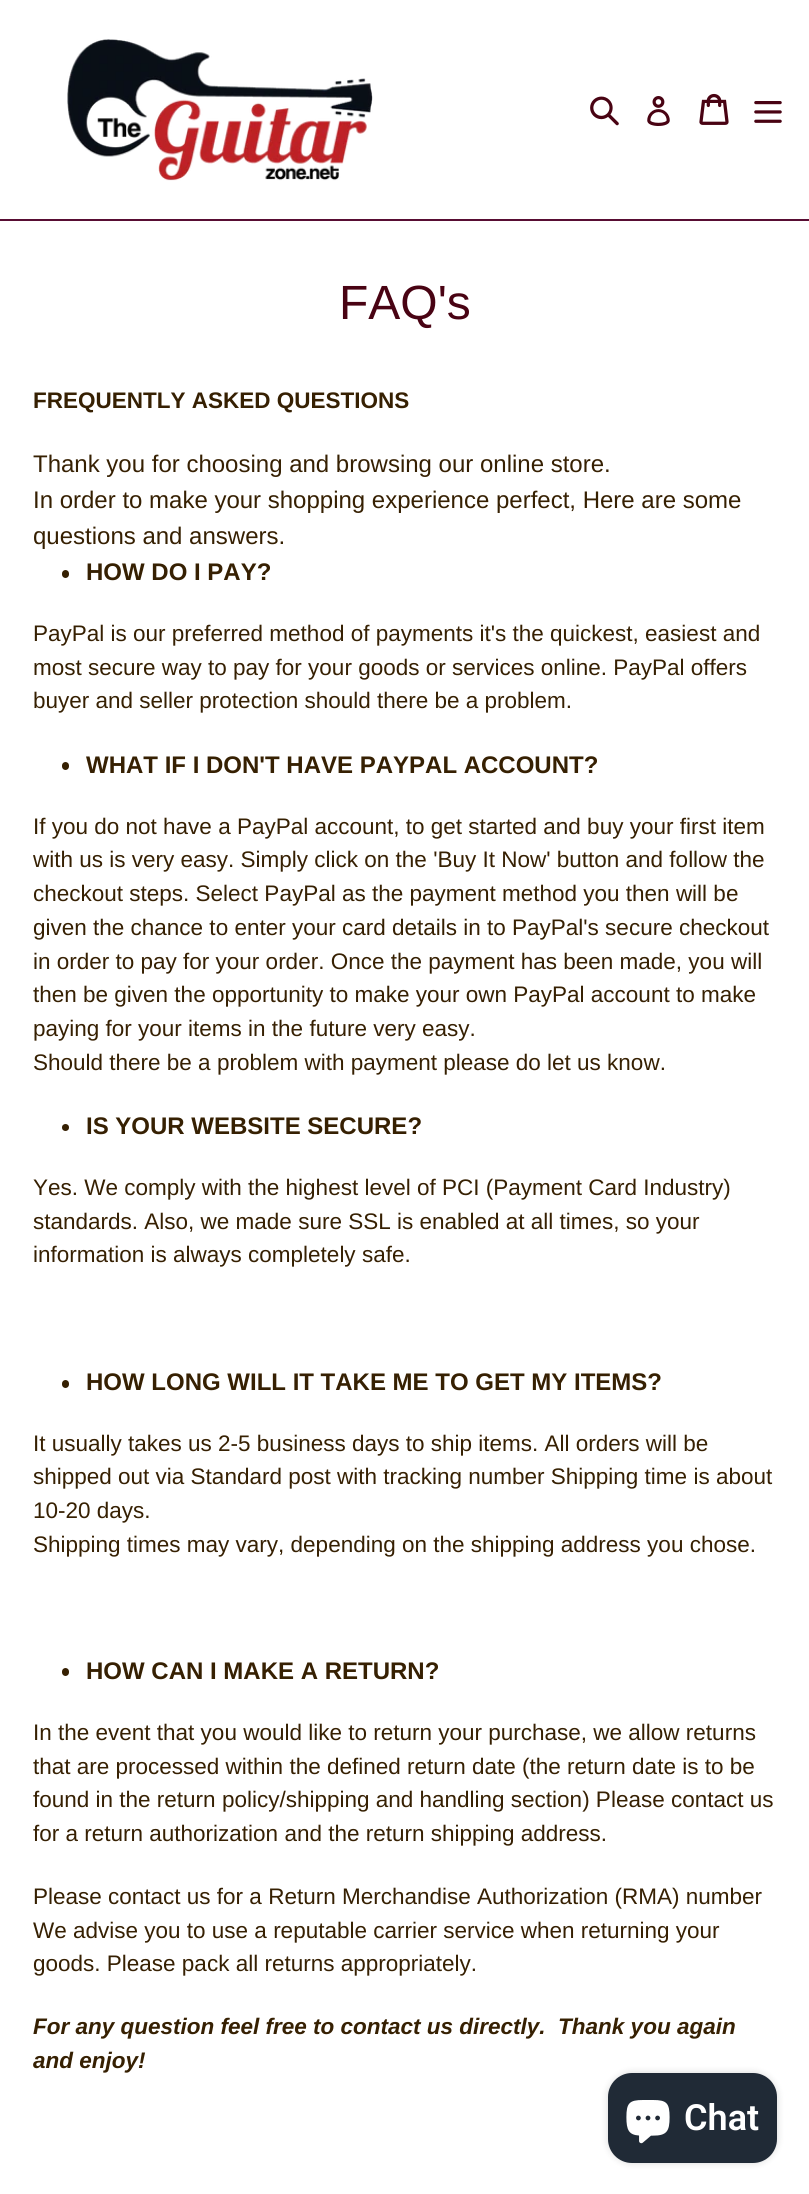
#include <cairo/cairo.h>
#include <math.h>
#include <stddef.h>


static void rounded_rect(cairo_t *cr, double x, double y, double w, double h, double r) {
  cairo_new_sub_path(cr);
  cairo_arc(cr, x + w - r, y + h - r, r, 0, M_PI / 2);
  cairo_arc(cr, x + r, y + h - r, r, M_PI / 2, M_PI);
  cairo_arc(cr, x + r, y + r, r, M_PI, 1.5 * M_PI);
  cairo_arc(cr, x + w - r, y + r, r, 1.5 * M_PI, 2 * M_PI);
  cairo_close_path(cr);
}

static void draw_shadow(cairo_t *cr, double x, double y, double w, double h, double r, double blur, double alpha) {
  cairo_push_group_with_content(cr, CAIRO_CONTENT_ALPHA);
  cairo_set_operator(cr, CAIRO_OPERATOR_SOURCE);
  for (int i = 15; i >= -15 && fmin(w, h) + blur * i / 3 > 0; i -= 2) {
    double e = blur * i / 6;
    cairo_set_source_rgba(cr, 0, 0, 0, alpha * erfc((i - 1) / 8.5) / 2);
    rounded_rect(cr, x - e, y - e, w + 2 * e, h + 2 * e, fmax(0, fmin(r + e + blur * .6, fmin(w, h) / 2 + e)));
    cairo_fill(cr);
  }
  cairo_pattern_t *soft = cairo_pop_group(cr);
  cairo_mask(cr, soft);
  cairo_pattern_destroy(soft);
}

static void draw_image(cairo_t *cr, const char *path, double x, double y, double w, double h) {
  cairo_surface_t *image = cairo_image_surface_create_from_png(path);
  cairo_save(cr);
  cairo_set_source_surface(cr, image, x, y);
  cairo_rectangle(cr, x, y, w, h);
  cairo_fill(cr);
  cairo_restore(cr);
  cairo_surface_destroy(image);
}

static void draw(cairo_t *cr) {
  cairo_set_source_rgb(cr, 1, 1, 1);
  cairo_paint(cr);
  cairo_set_source_rgb(cr, 88 / 255.0, 13 / 255.0, 51 / 255.0);
  cairo_rectangle(cr, 0, 219, 809, 2);
  cairo_fill(cr);
  draw_image(cr, "images/1.png", 67, 39, 306, 142);
  draw_image(cr, "images/2.png", 590, 96, 29, 30);
  draw_image(cr, "images/3.png", 647, 96, 23, 30);
  draw_image(cr, "images/4.png", 699, 93, 30, 32);
  draw_image(cr, "images/5.png", 754, 101, 28, 22);
  cairo_set_source_rgb(cr, 54 / 255.0, 32 / 255.0, 2 / 255.0);
  rounded_rect(cr, 62, 570, 7, 8, 3.5);
  cairo_fill(cr);
  rounded_rect(cr, 62, 762, 7, 8, 3.5);
  cairo_fill(cr);
  cairo_arc(cr, 65.5, 1127.5, 3.5, 0, 2 * M_PI);
  cairo_fill(cr);
  rounded_rect(cr, 62, 1380, 7, 8, 3.5);
  cairo_fill(cr);
  rounded_rect(cr, 62, 1668, 7, 8, 3.5);
  cairo_fill(cr);
  cairo_set_source_rgb(cr, 0, 0, 0);
  draw_shadow(cr, 608, 2073, 169, 90, 24, 4, 0.15);
  cairo_set_source_rgb(cr, 32 / 255.0, 42 / 255.0, 54 / 255.0);
  rounded_rect(cr, 608, 2073, 169, 90, 24);
  cairo_fill(cr);
  draw_image(cr, "images/6.png", 626, 2100, 44, 44);
  cairo_select_font_face(cr, "Liberation Sans", CAIRO_FONT_SLANT_NORMAL, CAIRO_FONT_WEIGHT_NORMAL);
  cairo_set_font_size(cr, 48);
  cairo_set_source_rgb(cr, 73 / 255.0, 3 / 255.0, 19 / 255.0);
  cairo_move_to(cr, 339, 319);
  cairo_show_text(cr, "FAQ's");
  cairo_select_font_face(cr, "Liberation Sans", CAIRO_FONT_SLANT_NORMAL, CAIRO_FONT_WEIGHT_BOLD);
  cairo_set_font_size(cr, 22.5);
  cairo_set_source_rgb(cr, 54 / 255.0, 32 / 255.0, 2 / 255.0);
  cairo_move_to(cr, 33, 408);
  cairo_show_text(cr, "FREQUENTLY ASKED QUESTIONS");
  cairo_select_font_face(cr, "Liberation Sans", CAIRO_FONT_SLANT_NORMAL, CAIRO_FONT_WEIGHT_NORMAL);
  cairo_set_font_size(cr, 24);
  cairo_move_to(cr, 33, 472);
  cairo_show_text(cr, "Thank you for choosing and browsing our online store.");
  cairo_move_to(cr, 33, 508);
  cairo_show_text(cr, "In order to make your shopping experience perfect, Here are some");
  cairo_move_to(cr, 33, 544);
  cairo_show_text(cr, "questions and answers.");
  cairo_select_font_face(cr, "Liberation Sans", CAIRO_FONT_SLANT_NORMAL, CAIRO_FONT_WEIGHT_BOLD);
  cairo_move_to(cr, 86, 580);
  cairo_show_text(cr, "HOW DO I PAY?");
  cairo_select_font_face(cr, "Liberation Sans", CAIRO_FONT_SLANT_NORMAL, CAIRO_FONT_WEIGHT_NORMAL);
  cairo_set_font_size(cr, 22.5);
  cairo_move_to(cr, 33, 641);
  cairo_show_text(cr, "PayPal is our preferred method of payments it's the quickest, easiest and");
  cairo_move_to(cr, 33, 675);
  cairo_show_text(cr, "most secure way to pay for your goods or services online. PayPal offers");
  cairo_move_to(cr, 33, 708);
  cairo_show_text(cr, "buyer and seller protection should there be a problem.");
  cairo_select_font_face(cr, "Liberation Sans", CAIRO_FONT_SLANT_NORMAL, CAIRO_FONT_WEIGHT_BOLD);
  cairo_set_font_size(cr, 24);
  cairo_move_to(cr, 86, 773);
  cairo_show_text(cr, "WHAT IF I DON'T HAVE PAYPAL ACCOUNT?");
  cairo_select_font_face(cr, "Liberation Sans", CAIRO_FONT_SLANT_NORMAL, CAIRO_FONT_WEIGHT_NORMAL);
  cairo_set_font_size(cr, 22.5);
  cairo_move_to(cr, 33, 834);
  cairo_show_text(cr, "If you do not have a PayPal account, to get started and buy your first item");
  cairo_move_to(cr, 33, 867);
  cairo_show_text(cr, "with us is very easy. Simply click on the 'Buy It Now' button and follow the");
  cairo_move_to(cr, 33, 901);
  cairo_show_text(cr, "checkout steps. Select PayPal as the payment method you then will be");
  cairo_move_to(cr, 33, 935);
  cairo_show_text(cr, "given the chance to enter your card details in to PayPal's secure checkout");
  cairo_move_to(cr, 33, 969);
  cairo_show_text(cr, "in order to pay for your order. Once the payment has been made, you will");
  cairo_move_to(cr, 33, 1002);
  cairo_show_text(cr, "then be given the opportunity to make your own PayPal account to make");
  cairo_move_to(cr, 33, 1036);
  cairo_show_text(cr, "paying for your items in the future very easy.");
  cairo_move_to(cr, 33, 1070);
  cairo_show_text(cr, "Should there be a problem with payment please do let us know.");
  cairo_select_font_face(cr, "Liberation Sans", CAIRO_FONT_SLANT_NORMAL, CAIRO_FONT_WEIGHT_BOLD);
  cairo_set_font_size(cr, 24);
  cairo_move_to(cr, 86, 1134);
  cairo_show_text(cr, "IS YOUR WEBSITE SECURE?");
  cairo_select_font_face(cr, "Liberation Sans", CAIRO_FONT_SLANT_NORMAL, CAIRO_FONT_WEIGHT_NORMAL);
  cairo_set_font_size(cr, 22.5);
  cairo_move_to(cr, 33, 1195);
  cairo_show_text(cr, "Yes. We comply with the highest level of PCI (Payment Card Industry)");
  cairo_move_to(cr, 33, 1229);
  cairo_show_text(cr, "standards. Also, we made sure SSL is enabled at all times, so your");
  cairo_move_to(cr, 33, 1262);
  cairo_show_text(cr, "information is always completely safe.");
  cairo_select_font_face(cr, "Liberation Sans", CAIRO_FONT_SLANT_NORMAL, CAIRO_FONT_WEIGHT_BOLD);
  cairo_set_font_size(cr, 24);
  cairo_move_to(cr, 86, 1390);
  cairo_show_text(cr, "HOW LONG WILL IT TAKE ME TO GET MY ITEMS?");
  cairo_select_font_face(cr, "Liberation Sans", CAIRO_FONT_SLANT_NORMAL, CAIRO_FONT_WEIGHT_NORMAL);
  cairo_set_font_size(cr, 22.5);
  cairo_move_to(cr, 33, 1451);
  cairo_show_text(cr, "It usually takes us 2-5 business days to ship items. All orders will be");
  cairo_move_to(cr, 33, 1484);
  cairo_show_text(cr, "shipped out via Standard post with tracking number Shipping time is about");
  cairo_move_to(cr, 33, 1518);
  cairo_show_text(cr, "10-20 days.");
  cairo_move_to(cr, 33, 1552);
  cairo_show_text(cr, "Shipping times may vary, depending on the shipping address you chose.");
  cairo_select_font_face(cr, "Liberation Sans", CAIRO_FONT_SLANT_NORMAL, CAIRO_FONT_WEIGHT_BOLD);
  cairo_set_font_size(cr, 24);
  cairo_move_to(cr, 86, 1679);
  cairo_show_text(cr, "HOW CAN I MAKE A RETURN?");
  cairo_select_font_face(cr, "Liberation Sans", CAIRO_FONT_SLANT_NORMAL, CAIRO_FONT_WEIGHT_NORMAL);
  cairo_set_font_size(cr, 22.5);
  cairo_move_to(cr, 33, 1740);
  cairo_show_text(cr, "In the event that you would like to return your purchase, we allow returns");
  cairo_move_to(cr, 33, 1774);
  cairo_show_text(cr, "that are processed within the defined return date (the return date is to be");
  cairo_move_to(cr, 33, 1807);
  cairo_show_text(cr, "found in the return policy/shipping and handling section) Please contact us");
  cairo_move_to(cr, 33, 1841);
  cairo_show_text(cr, "for a return authorization and the return shipping address.");
  cairo_move_to(cr, 33, 1904);
  cairo_show_text(cr, "Please contact us for a Return Merchandise Authorization (RMA) number");
  cairo_move_to(cr, 33, 1938);
  cairo_show_text(cr, "We advise you to use a reputable carrier service when returning your");
  cairo_move_to(cr, 33, 1971);
  cairo_show_text(cr, "goods. Please pack all returns appropriately.");
  cairo_select_font_face(cr, "Liberation Sans", CAIRO_FONT_SLANT_ITALIC, CAIRO_FONT_WEIGHT_BOLD);
  cairo_move_to(cr, 33, 2034);
  cairo_show_text(cr, "For any question feel free to contact us directly.  Thank you again");
  cairo_move_to(cr, 33, 2068);
  cairo_show_text(cr, "and enjoy!");
  cairo_select_font_face(cr, "Roboto SemiBold", CAIRO_FONT_SLANT_NORMAL, CAIRO_FONT_WEIGHT_NORMAL);
  cairo_set_font_size(cr, 36);
  cairo_set_source_rgb(cr, 1, 1, 1);
  cairo_move_to(cr, 684, 2130);
  cairo_show_text(cr, "Chat");
}

int main(void) {
  cairo_surface_t *surface = cairo_image_surface_create(CAIRO_FORMAT_RGB24, 809, 2194);
  cairo_t *cr = cairo_create(surface);
  cairo_font_options_t *options = cairo_font_options_create();
  cairo_font_options_set_hint_metrics(options, CAIRO_HINT_METRICS_OFF);
  cairo_font_options_set_hint_style(options, CAIRO_HINT_STYLE_NONE);
  cairo_set_font_options(cr, options);
  cairo_set_miter_limit(cr, 4);
  draw(cr);
  cairo_surface_write_to_png(surface, "out.png");
  cairo_font_options_destroy(options);
  cairo_destroy(cr);
  cairo_surface_destroy(surface);
  return 0;
}
